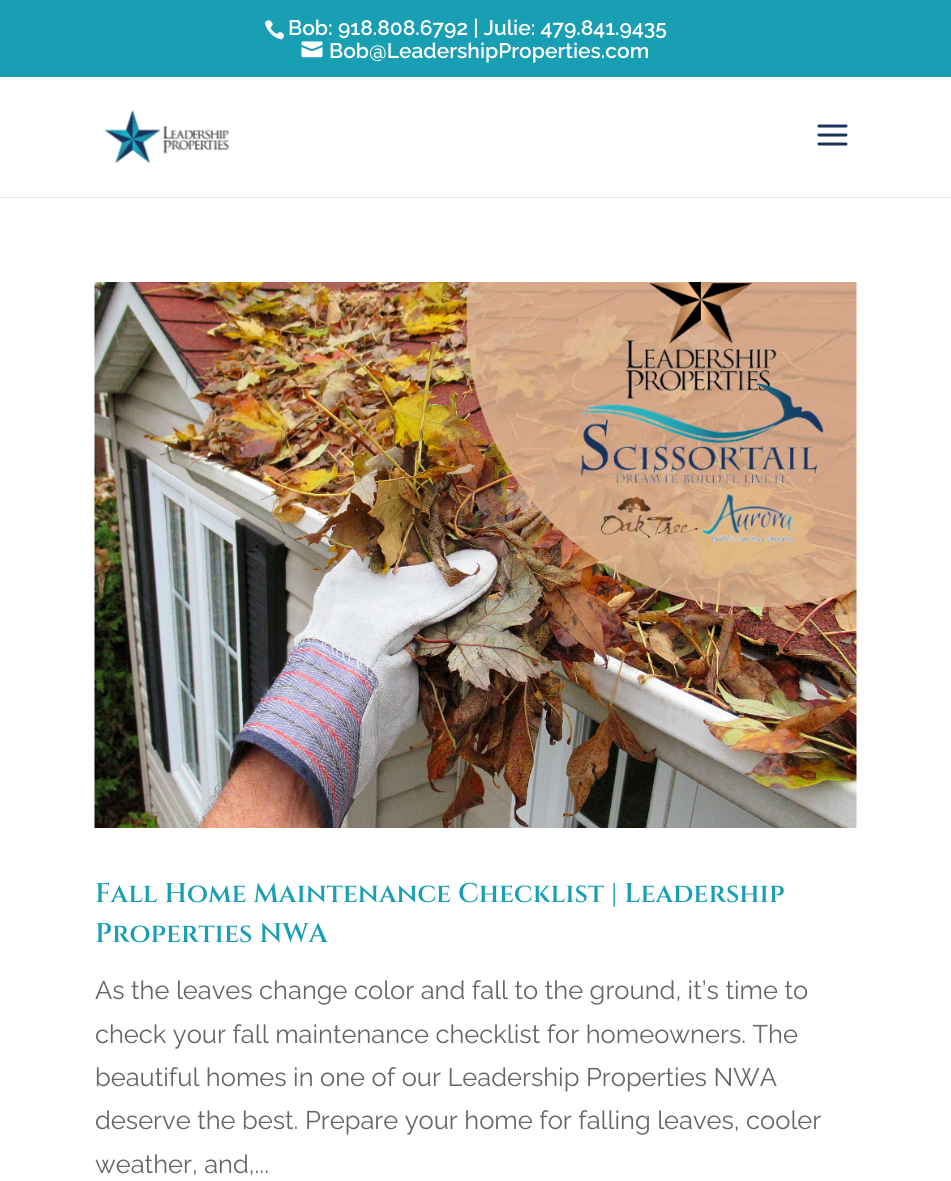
#include <cairo/cairo.h>
#include <math.h>
#include <stddef.h>


static void draw_image(cairo_t *cr, const char *path, double x, double y, double w, double h) {
  cairo_surface_t *image = cairo_image_surface_create_from_png(path);
  cairo_save(cr);
  cairo_set_source_surface(cr, image, x, y);
  cairo_rectangle(cr, x, y, w, h);
  cairo_fill(cr);
  cairo_restore(cr);
  cairo_surface_destroy(image);
}

static void draw(cairo_t *cr) {
  cairo_set_source_rgb(cr, 25 / 255.0, 159 / 255.0, 180 / 255.0);
  cairo_paint(cr);
  draw_image(cr, "images/1.png", 264, 20, 21, 20);
  draw_image(cr, "images/2.png", 301, 41, 22, 17);
  cairo_set_source_rgb(cr, 230 / 255.0, 230 / 255.0, 230 / 255.0);
  cairo_rectangle(cr, 0, 197, 951, 1);
  cairo_fill(cr);
  cairo_set_source_rgb(cr, 1, 1, 1);
  cairo_rectangle(cr, 0, 77, 951, 120);
  cairo_fill(cr);
  draw_image(cr, "images/3.png", 104, 110, 125, 53);
  draw_image(cr, "images/4.png", 817, 124, 31, 22);
  cairo_rectangle(cr, 0, 198, 951, 983);
  cairo_fill(cr);
  draw_image(cr, "images/5.png", 94, 282, 763, 546);
  cairo_select_font_face(cr, "Raleway SemiBold", CAIRO_FONT_SLANT_NORMAL, CAIRO_FONT_WEIGHT_NORMAL);
  cairo_set_font_size(cr, 21);
  cairo_move_to(cr, 288, 35);
  cairo_show_text(cr, "Bob: 918.808.6792 | Julie: 479.841.9435");
  cairo_move_to(cr, 329, 58);
  cairo_show_text(cr, "Bob@LeadershipProperties.com");
  cairo_select_font_face(cr, "Cinzel SemiBold", CAIRO_FONT_SLANT_NORMAL, CAIRO_FONT_WEIGHT_NORMAL);
  cairo_set_font_size(cr, 27);
  cairo_set_source_rgb(cr, 25 / 255.0, 159 / 255.0, 180 / 255.0);
  cairo_move_to(cr, 95, 902);
  cairo_show_text(cr, "Fall Home Maintenance Checklist | Leadership");
  cairo_move_to(cr, 95, 942);
  cairo_show_text(cr, "Properties NWA");
  cairo_select_font_face(cr, "Raleway", CAIRO_FONT_SLANT_NORMAL, CAIRO_FONT_WEIGHT_NORMAL);
  cairo_set_font_size(cr, 25.5);
  cairo_set_source_rgb(cr, 102 / 255.0, 102 / 255.0, 102 / 255.0);
  cairo_move_to(cr, 95, 999);
  cairo_show_text(cr, "As the leaves change color and fall to the ground, it’s time to");
  cairo_move_to(cr, 95, 1043);
  cairo_show_text(cr, "check your fall maintenance checklist for homeowners. The");
  cairo_move_to(cr, 95, 1086);
  cairo_show_text(cr, "beautiful homes in one of our Leadership Properties NWA");
  cairo_move_to(cr, 95, 1129);
  cairo_show_text(cr, "deserve the best. Prepare your home for falling leaves, cooler");
  cairo_move_to(cr, 95, 1173);
  cairo_show_text(cr, "weather, and,...");
}

int main(void) {
  cairo_surface_t *surface = cairo_image_surface_create(CAIRO_FORMAT_RGB24, 951, 1181);
  cairo_t *cr = cairo_create(surface);
  cairo_font_options_t *options = cairo_font_options_create();
  cairo_font_options_set_hint_metrics(options, CAIRO_HINT_METRICS_OFF);
  cairo_font_options_set_hint_style(options, CAIRO_HINT_STYLE_NONE);
  cairo_set_font_options(cr, options);
  cairo_set_miter_limit(cr, 4);
  draw(cr);
  cairo_surface_write_to_png(surface, "out.png");
  cairo_font_options_destroy(options);
  cairo_destroy(cr);
  cairo_surface_destroy(surface);
  return 0;
}
